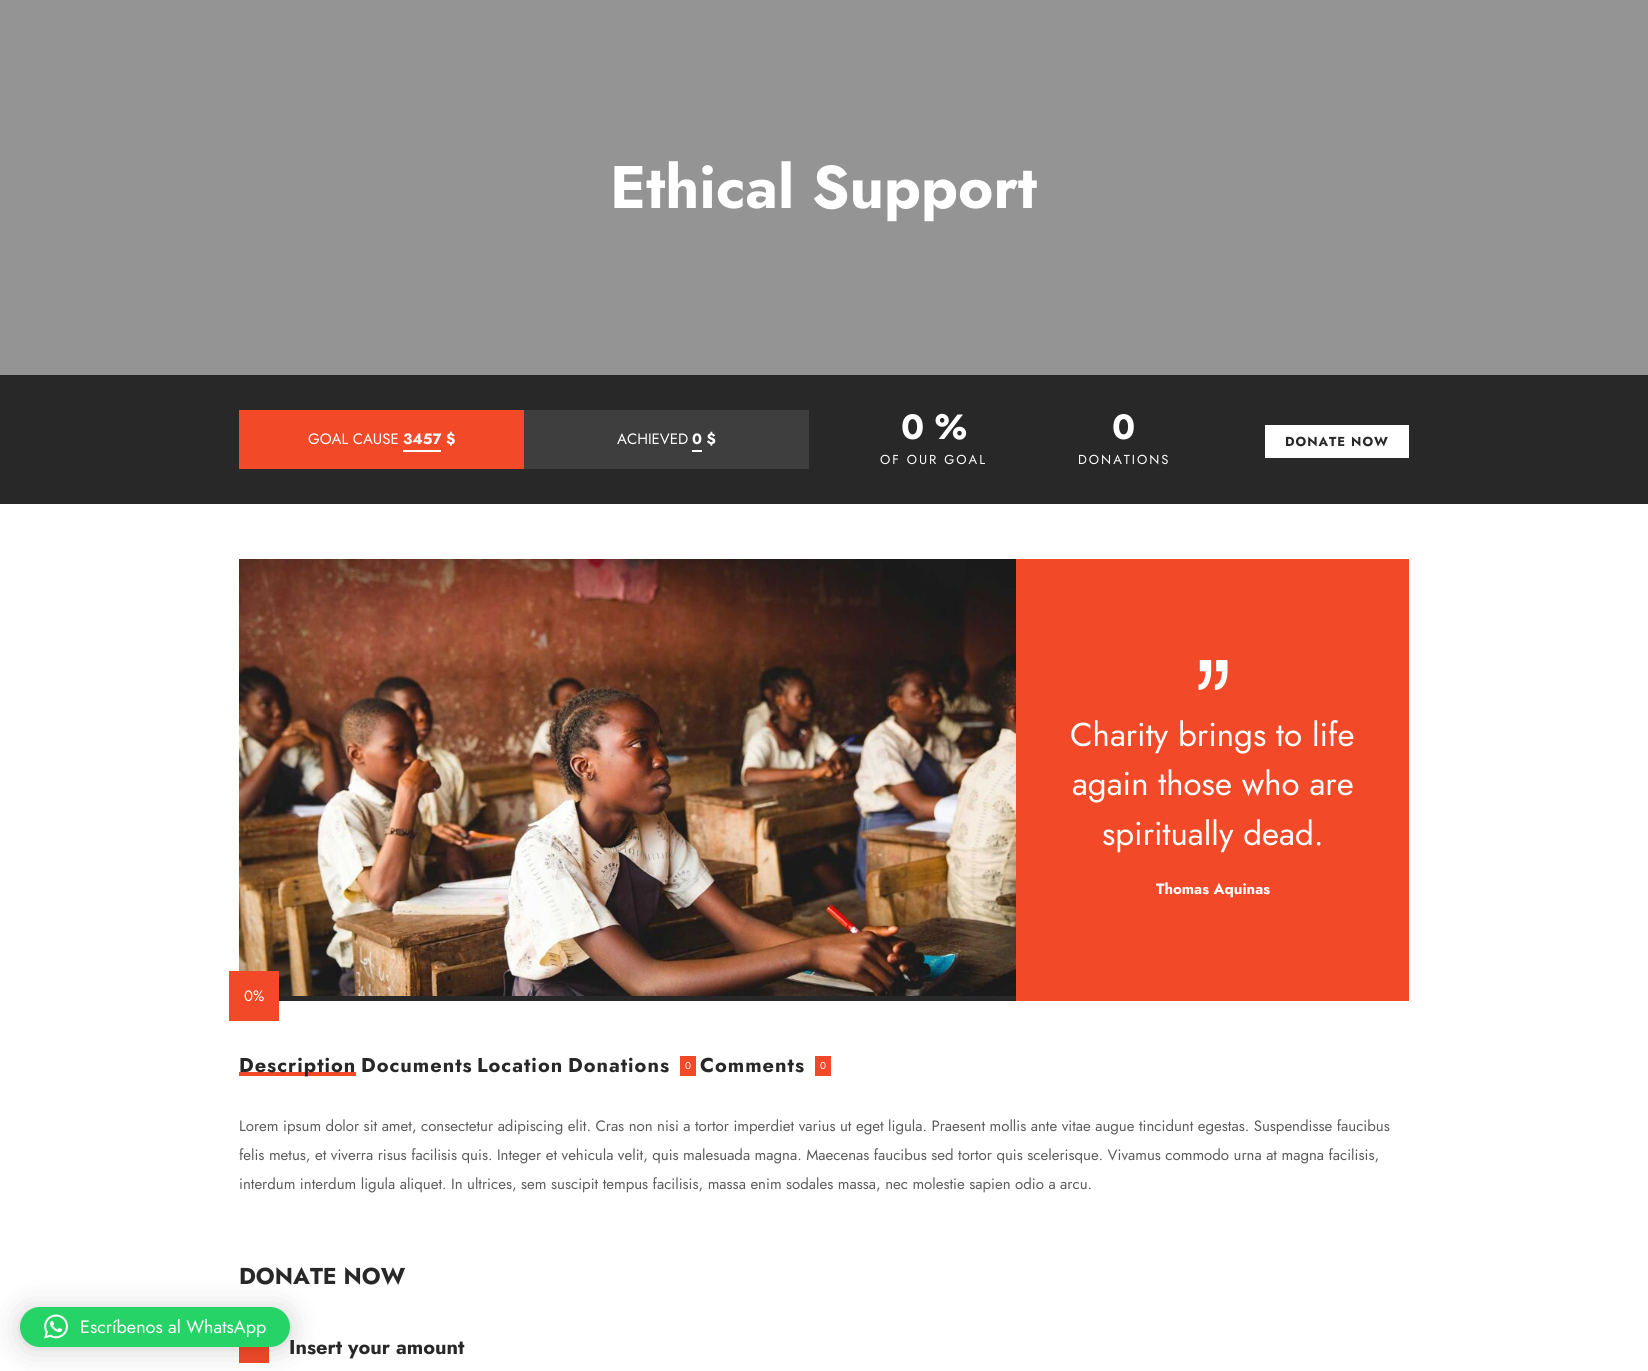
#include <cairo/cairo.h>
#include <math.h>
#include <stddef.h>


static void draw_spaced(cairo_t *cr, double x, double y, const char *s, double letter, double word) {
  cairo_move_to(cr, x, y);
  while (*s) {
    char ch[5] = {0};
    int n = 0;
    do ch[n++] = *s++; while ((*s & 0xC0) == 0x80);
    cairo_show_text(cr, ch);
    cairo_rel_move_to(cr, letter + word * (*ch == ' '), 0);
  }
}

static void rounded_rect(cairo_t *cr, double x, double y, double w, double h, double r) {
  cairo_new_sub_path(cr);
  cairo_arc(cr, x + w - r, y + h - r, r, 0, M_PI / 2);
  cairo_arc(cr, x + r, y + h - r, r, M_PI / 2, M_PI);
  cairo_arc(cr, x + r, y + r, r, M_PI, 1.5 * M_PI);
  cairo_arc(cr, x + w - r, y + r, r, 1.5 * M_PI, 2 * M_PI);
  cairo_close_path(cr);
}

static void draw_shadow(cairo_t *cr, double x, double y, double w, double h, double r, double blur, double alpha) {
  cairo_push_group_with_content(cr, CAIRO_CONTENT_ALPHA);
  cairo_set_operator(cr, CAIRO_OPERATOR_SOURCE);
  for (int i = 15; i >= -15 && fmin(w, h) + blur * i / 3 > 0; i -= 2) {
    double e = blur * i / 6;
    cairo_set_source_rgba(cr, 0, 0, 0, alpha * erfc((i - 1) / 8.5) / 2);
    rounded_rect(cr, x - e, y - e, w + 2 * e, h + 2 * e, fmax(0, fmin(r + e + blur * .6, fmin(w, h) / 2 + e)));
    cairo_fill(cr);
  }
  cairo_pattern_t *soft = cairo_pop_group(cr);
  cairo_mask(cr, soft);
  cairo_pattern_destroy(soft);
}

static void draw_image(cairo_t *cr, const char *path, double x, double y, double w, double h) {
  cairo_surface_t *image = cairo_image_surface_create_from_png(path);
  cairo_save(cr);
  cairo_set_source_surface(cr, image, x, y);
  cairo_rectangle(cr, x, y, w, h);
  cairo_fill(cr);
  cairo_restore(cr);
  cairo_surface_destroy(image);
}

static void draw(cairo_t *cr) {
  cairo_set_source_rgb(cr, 1, 1, 1);
  cairo_paint(cr);
  cairo_set_source_rgb(cr, 242 / 255.0, 74 / 255.0, 41 / 255.0);
  cairo_rectangle(cr, 239, 1347, 30, 16);
  cairo_fill(cr);
  cairo_set_source_rgb(cr, 0, 0, 0);
  draw_shadow(cr, 20, 1309, 270, 40, 20, 16, 0.16);
  draw_shadow(cr, 20, 1308, 270, 40, 20, 3, 0.06);
  cairo_set_source_rgb(cr, 37 / 255.0, 211 / 255.0, 102 / 255.0);
  rounded_rect(cr, 20, 1307, 270, 40, 20);
  cairo_fill(cr);
  draw_image(cr, "images/1.png", 44, 1314, 24, 25);
  cairo_set_source_rgb(cr, 148 / 255.0, 148 / 255.0, 148 / 255.0);
  cairo_rectangle(cr, 0, 0, 1648, 375);
  cairo_fill(cr);
  cairo_set_source_rgb(cr, 40 / 255.0, 40 / 255.0, 40 / 255.0);
  cairo_rectangle(cr, 0, 375, 1648, 129);
  cairo_fill(cr);
  cairo_set_source_rgb(cr, 242 / 255.0, 74 / 255.0, 41 / 255.0);
  cairo_rectangle(cr, 239, 410, 285, 59);
  cairo_fill(cr);
  cairo_set_source_rgb(cr, 1, 1, 1);
  cairo_rectangle(cr, 403, 450, 38, 2);
  cairo_fill(cr);
  cairo_set_source_rgb(cr, 62 / 255.0, 62 / 255.0, 62 / 255.0);
  cairo_rectangle(cr, 524, 410, 285, 59);
  cairo_fill(cr);
  cairo_set_source_rgb(cr, 1, 1, 1);
  cairo_rectangle(cr, 692, 450, 10, 2);
  cairo_fill(cr);
  cairo_rectangle(cr, 1265, 425, 144, 33);
  cairo_fill(cr);
  cairo_set_source_rgb(cr, 242 / 255.0, 74 / 255.0, 41 / 255.0);
  cairo_rectangle(cr, 1016, 559, 393, 442);
  cairo_fill(cr);
  draw_image(cr, "images/2.png", 1198, 660, 30, 30);
  draw_image(cr, "images/3.png", 239, 559, 777, 437);
  cairo_set_source_rgb(cr, 40 / 255.0, 40 / 255.0, 40 / 255.0);
  cairo_rectangle(cr, 279, 996, 737, 5);
  cairo_fill(cr);
  cairo_set_source_rgb(cr, 242 / 255.0, 74 / 255.0, 41 / 255.0);
  cairo_rectangle(cr, 229, 971, 50, 50);
  cairo_fill(cr);
  cairo_rectangle(cr, 239, 1072, 117, 4);
  cairo_fill(cr);
  cairo_rectangle(cr, 680, 1056, 16, 20);
  cairo_fill(cr);
  cairo_rectangle(cr, 815, 1056, 16, 20);
  cairo_fill(cr);
  cairo_select_font_face(cr, "Jost", CAIRO_FONT_SLANT_NORMAL, CAIRO_FONT_WEIGHT_NORMAL);
  cairo_set_font_size(cr, 18);
  cairo_set_source_rgb(cr, 1, 1, 1);
  cairo_move_to(cr, 80, 1333);
  cairo_show_text(cr, "Escríbenos al WhatsApp");
  cairo_select_font_face(cr, "Jost", CAIRO_FONT_SLANT_NORMAL, CAIRO_FONT_WEIGHT_BOLD);
  cairo_set_font_size(cr, 60);
  cairo_move_to(cr, 610, 208);
  cairo_show_text(cr, "Ethical Support");
  cairo_select_font_face(cr, "Jost", CAIRO_FONT_SLANT_NORMAL, CAIRO_FONT_WEIGHT_NORMAL);
  cairo_set_font_size(cr, 15);
  cairo_move_to(cr, 308, 444);
  cairo_show_text(cr, "GOAL CAUSE");
  cairo_select_font_face(cr, "Jost", CAIRO_FONT_SLANT_NORMAL, CAIRO_FONT_WEIGHT_BOLD);
  cairo_move_to(cr, 403, 444);
  cairo_show_text(cr, "3457 $");
  cairo_select_font_face(cr, "Jost", CAIRO_FONT_SLANT_NORMAL, CAIRO_FONT_WEIGHT_NORMAL);
  cairo_move_to(cr, 617, 444);
  cairo_show_text(cr, "ACHIEVED");
  cairo_select_font_face(cr, "Jost", CAIRO_FONT_SLANT_NORMAL, CAIRO_FONT_WEIGHT_BOLD);
  cairo_move_to(cr, 692, 444);
  cairo_show_text(cr, "0 $");
  cairo_set_font_size(cr, 35);
  cairo_move_to(cr, 901, 439);
  cairo_show_text(cr, "0 %");
  cairo_select_font_face(cr, "Jost", CAIRO_FONT_SLANT_NORMAL, CAIRO_FONT_WEIGHT_NORMAL);
  cairo_set_font_size(cr, 13);
  draw_spaced(cr, 880, 464, "OF OUR GOAL", 2, 0);
  cairo_select_font_face(cr, "Jost", CAIRO_FONT_SLANT_NORMAL, CAIRO_FONT_WEIGHT_BOLD);
  cairo_set_font_size(cr, 35);
  cairo_move_to(cr, 1112, 439);
  cairo_show_text(cr, "0");
  cairo_select_font_face(cr, "Jost", CAIRO_FONT_SLANT_NORMAL, CAIRO_FONT_WEIGHT_NORMAL);
  cairo_set_font_size(cr, 13);
  draw_spaced(cr, 1078, 464, "DONATIONS", 2, 0);
  cairo_select_font_face(cr, "Jost", CAIRO_FONT_SLANT_NORMAL, CAIRO_FONT_WEIGHT_BOLD);
  cairo_set_source_rgb(cr, 40 / 255.0, 40 / 255.0, 40 / 255.0);
  draw_spaced(cr, 1285, 446, "DONATE NOW", 1, 0);
  cairo_select_font_face(cr, "Jost", CAIRO_FONT_SLANT_NORMAL, CAIRO_FONT_WEIGHT_NORMAL);
  cairo_set_font_size(cr, 33);
  cairo_set_source_rgb(cr, 1, 1, 1);
  cairo_move_to(cr, 1070, 746);
  cairo_show_text(cr, "Charity brings to life");
  cairo_move_to(cr, 1072, 795);
  cairo_show_text(cr, "again those who are");
  cairo_move_to(cr, 1102, 845);
  cairo_show_text(cr, "spiritually dead.");
  cairo_select_font_face(cr, "Jost", CAIRO_FONT_SLANT_NORMAL, CAIRO_FONT_WEIGHT_BOLD);
  cairo_set_font_size(cr, 15);
  cairo_move_to(cr, 1156, 894);
  cairo_show_text(cr, "Thomas Aquinas");
  cairo_select_font_face(cr, "Jost", CAIRO_FONT_SLANT_NORMAL, CAIRO_FONT_WEIGHT_NORMAL);
  cairo_move_to(cr, 244, 1001);
  cairo_show_text(cr, "0%");
  cairo_select_font_face(cr, "Jost", CAIRO_FONT_SLANT_NORMAL, CAIRO_FONT_WEIGHT_BOLD);
  cairo_set_font_size(cr, 20);
  cairo_set_source_rgb(cr, 40 / 255.0, 40 / 255.0, 40 / 255.0);
  draw_spaced(cr, 239, 1072, "Description", 1, 0);
  draw_spaced(cr, 361, 1072, "Documents", 1, 0);
  draw_spaced(cr, 477, 1072, "Location", 1, 0);
  draw_spaced(cr, 568, 1072, "Donations", 1, 0);
  cairo_select_font_face(cr, "Jost", CAIRO_FONT_SLANT_NORMAL, CAIRO_FONT_WEIGHT_NORMAL);
  cairo_set_font_size(cr, 10);
  cairo_set_source_rgb(cr, 1, 1, 1);
  cairo_move_to(cr, 685, 1069);
  cairo_show_text(cr, "0");
  cairo_select_font_face(cr, "Jost", CAIRO_FONT_SLANT_NORMAL, CAIRO_FONT_WEIGHT_BOLD);
  cairo_set_font_size(cr, 20);
  cairo_set_source_rgb(cr, 40 / 255.0, 40 / 255.0, 40 / 255.0);
  draw_spaced(cr, 700, 1072, "Comments", 1, 0);
  cairo_select_font_face(cr, "Jost", CAIRO_FONT_SLANT_NORMAL, CAIRO_FONT_WEIGHT_NORMAL);
  cairo_set_font_size(cr, 10);
  cairo_set_source_rgb(cr, 1, 1, 1);
  cairo_move_to(cr, 820, 1069);
  cairo_show_text(cr, "0");
  cairo_set_font_size(cr, 15);
  cairo_set_source_rgb(cr, 92 / 255.0, 92 / 255.0, 92 / 255.0);
  cairo_move_to(cr, 239, 1131);
  cairo_show_text(cr, "Lorem ipsum dolor sit amet, consectetur adipiscing elit. Cras non nisi a tortor imperdiet varius ut eget ligula. Praesent mollis ante vitae augue tincidunt egestas. Suspendisse faucibus");
  cairo_move_to(cr, 239, 1160);
  cairo_show_text(cr, "felis metus, et viverra risus facilisis quis. Integer et vehicula velit, quis malesuada magna. Maecenas faucibus sed tortor quis scelerisque. Vivamus commodo urna at magna facilisis,");
  cairo_move_to(cr, 239, 1189);
  cairo_show_text(cr, "interdum interdum ligula aliquet. In ultrices, sem suscipit tempus facilisis, massa enim sodales massa, nec molestie sapien odio a arcu.");
  cairo_select_font_face(cr, "Jost", CAIRO_FONT_SLANT_NORMAL, CAIRO_FONT_WEIGHT_BOLD);
  cairo_set_font_size(cr, 23);
  cairo_set_source_rgb(cr, 40 / 255.0, 40 / 255.0, 40 / 255.0);
  cairo_move_to(cr, 239, 1284);
  cairo_show_text(cr, "DONATE NOW");
  cairo_set_font_size(cr, 20);
  cairo_move_to(cr, 289, 1354);
  cairo_show_text(cr, "Insert your amount");
}

int main(void) {
  cairo_surface_t *surface = cairo_image_surface_create(CAIRO_FORMAT_RGB24, 1648, 1371);
  cairo_t *cr = cairo_create(surface);
  cairo_font_options_t *options = cairo_font_options_create();
  cairo_font_options_set_hint_metrics(options, CAIRO_HINT_METRICS_OFF);
  cairo_font_options_set_hint_style(options, CAIRO_HINT_STYLE_NONE);
  cairo_set_font_options(cr, options);
  cairo_set_miter_limit(cr, 4);
  draw(cr);
  cairo_surface_write_to_png(surface, "out.png");
  cairo_font_options_destroy(options);
  cairo_destroy(cr);
  cairo_surface_destroy(surface);
  return 0;
}
